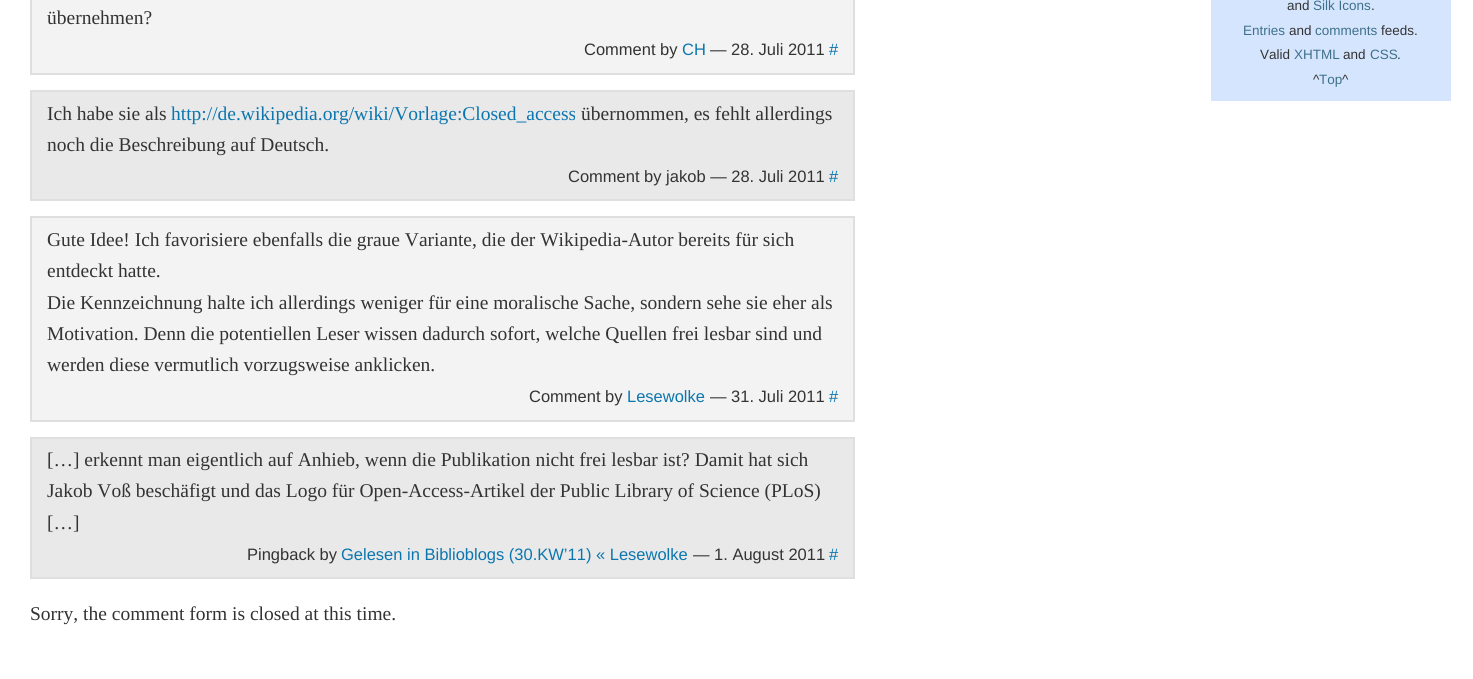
#include <cairo/cairo.h>
#include <math.h>
#include <stddef.h>


static void draw(cairo_t *cr) {
  cairo_set_source_rgb(cr, 1, 1, 1);
  cairo_paint(cr);
  cairo_set_source_rgb(cr, 244 / 255.0, 243 / 255.0, 243 / 255.0);
  cairo_rectangle(cr, 31, -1, 823, 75);
  cairo_fill_preserve(cr);
  cairo_set_source_rgb(cr, 224 / 255.0, 222 / 255.0, 222 / 255.0);
  cairo_stroke(cr);
  cairo_set_source_rgb(cr, 233 / 255.0, 233 / 255.0, 234 / 255.0);
  cairo_rectangle(cr, 31, 91, 823, 109);
  cairo_fill_preserve(cr);
  cairo_set_source_rgb(cr, 224 / 255.0, 222 / 255.0, 222 / 255.0);
  cairo_stroke(cr);
  cairo_set_source_rgb(cr, 244 / 255.0, 243 / 255.0, 243 / 255.0);
  cairo_rectangle(cr, 31, 217, 823, 204);
  cairo_fill_preserve(cr);
  cairo_set_source_rgb(cr, 224 / 255.0, 222 / 255.0, 222 / 255.0);
  cairo_stroke(cr);
  cairo_set_source_rgb(cr, 233 / 255.0, 233 / 255.0, 234 / 255.0);
  cairo_rectangle(cr, 31, 438, 823, 140);
  cairo_fill_preserve(cr);
  cairo_set_source_rgb(cr, 224 / 255.0, 222 / 255.0, 222 / 255.0);
  cairo_stroke(cr);
  cairo_set_source_rgb(cr, 213 / 255.0, 229 / 255.0, 254 / 255.0);
  cairo_rectangle(cr, 1211, 0, 240, 101);
  cairo_fill(cr);
  cairo_select_font_face(cr, "Liberation Serif", CAIRO_FONT_SLANT_NORMAL, CAIRO_FONT_WEIGHT_NORMAL);
  cairo_set_font_size(cr, 19.5);
  cairo_set_source_rgb(cr, 51 / 255.0, 51 / 255.0, 51 / 255.0);
  cairo_move_to(cr, 47, 24);
  cairo_show_text(cr, "übernehmen?");
  cairo_select_font_face(cr, "Liberation Sans", CAIRO_FONT_SLANT_NORMAL, CAIRO_FONT_WEIGHT_NORMAL);
  cairo_set_font_size(cr, 16.5);
  cairo_move_to(cr, 584, 55);
  cairo_show_text(cr, "Comment by");
  cairo_set_source_rgb(cr, 11 / 255.0, 118 / 255.0, 174 / 255.0);
  cairo_move_to(cr, 682, 55);
  cairo_show_text(cr, "CH");
  cairo_set_source_rgb(cr, 51 / 255.0, 51 / 255.0, 51 / 255.0);
  cairo_move_to(cr, 710, 55);
  cairo_show_text(cr, "— 28. Juli 2011");
  cairo_set_source_rgb(cr, 11 / 255.0, 118 / 255.0, 174 / 255.0);
  cairo_move_to(cr, 829, 55);
  cairo_show_text(cr, "#");
  cairo_select_font_face(cr, "Liberation Serif", CAIRO_FONT_SLANT_NORMAL, CAIRO_FONT_WEIGHT_NORMAL);
  cairo_set_font_size(cr, 19.5);
  cairo_set_source_rgb(cr, 51 / 255.0, 51 / 255.0, 51 / 255.0);
  cairo_move_to(cr, 47, 120);
  cairo_show_text(cr, "Ich habe sie als");
  cairo_set_source_rgb(cr, 11 / 255.0, 118 / 255.0, 174 / 255.0);
  cairo_move_to(cr, 171, 120);
  cairo_show_text(cr, "http://de.wikipedia.org/wiki/Vorlage:Closed_access");
  cairo_set_source_rgb(cr, 51 / 255.0, 51 / 255.0, 51 / 255.0);
  cairo_move_to(cr, 581, 120);
  cairo_show_text(cr, "übernommen, es fehlt allerdings");
  cairo_move_to(cr, 47, 151);
  cairo_show_text(cr, "noch die Beschreibung auf Deutsch.");
  cairo_select_font_face(cr, "Liberation Sans", CAIRO_FONT_SLANT_NORMAL, CAIRO_FONT_WEIGHT_NORMAL);
  cairo_set_font_size(cr, 16.5);
  cairo_move_to(cr, 568, 182);
  cairo_show_text(cr, "Comment by jakob — 28. Juli 2011");
  cairo_set_source_rgb(cr, 11 / 255.0, 118 / 255.0, 174 / 255.0);
  cairo_move_to(cr, 829, 182);
  cairo_show_text(cr, "#");
  cairo_select_font_face(cr, "Liberation Serif", CAIRO_FONT_SLANT_NORMAL, CAIRO_FONT_WEIGHT_NORMAL);
  cairo_set_font_size(cr, 19.5);
  cairo_set_source_rgb(cr, 51 / 255.0, 51 / 255.0, 51 / 255.0);
  cairo_move_to(cr, 47, 246);
  cairo_show_text(cr, "Gute Idee! Ich favorisiere ebenfalls die graue Variante, die der Wikipedia-Autor bereits für sich");
  cairo_move_to(cr, 47, 277);
  cairo_show_text(cr, "entdeckt hatte.");
  cairo_move_to(cr, 47, 309);
  cairo_show_text(cr, "Die Kennzeichnung halte ich allerdings weniger für eine moralische Sache, sondern sehe sie eher als");
  cairo_move_to(cr, 47, 340);
  cairo_show_text(cr, "Motivation. Denn die potentiellen Leser wissen dadurch sofort, welche Quellen frei lesbar sind und");
  cairo_move_to(cr, 47, 371);
  cairo_show_text(cr, "werden diese vermutlich vorzugsweise anklicken.");
  cairo_select_font_face(cr, "Liberation Sans", CAIRO_FONT_SLANT_NORMAL, CAIRO_FONT_WEIGHT_NORMAL);
  cairo_set_font_size(cr, 16.5);
  cairo_move_to(cr, 529, 402);
  cairo_show_text(cr, "Comment by");
  cairo_set_source_rgb(cr, 11 / 255.0, 118 / 255.0, 174 / 255.0);
  cairo_move_to(cr, 627, 402);
  cairo_show_text(cr, "Lesewolke");
  cairo_set_source_rgb(cr, 51 / 255.0, 51 / 255.0, 51 / 255.0);
  cairo_move_to(cr, 710, 402);
  cairo_show_text(cr, "— 31. Juli 2011");
  cairo_set_source_rgb(cr, 11 / 255.0, 118 / 255.0, 174 / 255.0);
  cairo_move_to(cr, 829, 402);
  cairo_show_text(cr, "#");
  cairo_select_font_face(cr, "Liberation Serif", CAIRO_FONT_SLANT_NORMAL, CAIRO_FONT_WEIGHT_NORMAL);
  cairo_set_font_size(cr, 19.5);
  cairo_set_source_rgb(cr, 51 / 255.0, 51 / 255.0, 51 / 255.0);
  cairo_move_to(cr, 47, 466);
  cairo_show_text(cr, "[…] erkennt man eigentlich auf Anhieb, wenn die Publikation nicht frei lesbar ist? Damit hat sich");
  cairo_move_to(cr, 47, 497);
  cairo_show_text(cr, "Jakob Voß beschäfigt und das Logo für Open-Access-Artikel der Public Library of Science (PLoS)");
  cairo_move_to(cr, 47, 529);
  cairo_show_text(cr, "[…]");
  cairo_select_font_face(cr, "Liberation Sans", CAIRO_FONT_SLANT_NORMAL, CAIRO_FONT_WEIGHT_NORMAL);
  cairo_set_font_size(cr, 16.5);
  cairo_move_to(cr, 247, 560);
  cairo_show_text(cr, "Pingback by");
  cairo_set_source_rgb(cr, 11 / 255.0, 118 / 255.0, 174 / 255.0);
  cairo_move_to(cr, 341, 560);
  cairo_show_text(cr, "Gelesen in Biblioblogs (30.KW’11) « Lesewolke");
  cairo_set_source_rgb(cr, 51 / 255.0, 51 / 255.0, 51 / 255.0);
  cairo_move_to(cr, 693, 560);
  cairo_show_text(cr, "— 1. August 2011");
  cairo_set_source_rgb(cr, 11 / 255.0, 118 / 255.0, 174 / 255.0);
  cairo_move_to(cr, 829, 560);
  cairo_show_text(cr, "#");
  cairo_select_font_face(cr, "Liberation Serif", CAIRO_FONT_SLANT_NORMAL, CAIRO_FONT_WEIGHT_NORMAL);
  cairo_set_font_size(cr, 19.5);
  cairo_set_source_rgb(cr, 51 / 255.0, 51 / 255.0, 51 / 255.0);
  cairo_move_to(cr, 30, 620);
  cairo_show_text(cr, "Sorry, the comment form is closed at this time.");
  cairo_select_font_face(cr, "Liberation Sans", CAIRO_FONT_SLANT_NORMAL, CAIRO_FONT_WEIGHT_NORMAL);
  cairo_set_font_size(cr, 13.5);
  cairo_move_to(cr, 1287, 10);
  cairo_show_text(cr, "and");
  cairo_set_source_rgb(cr, 62 / 255.0, 112 / 255.0, 138 / 255.0);
  cairo_move_to(cr, 1313, 10);
  cairo_show_text(cr, "Silk Icons");
  cairo_set_source_rgb(cr, 51 / 255.0, 51 / 255.0, 51 / 255.0);
  cairo_move_to(cr, 1371, 10);
  cairo_show_text(cr, ".");
  cairo_set_source_rgb(cr, 62 / 255.0, 112 / 255.0, 138 / 255.0);
  cairo_move_to(cr, 1243, 35);
  cairo_show_text(cr, "Entries");
  cairo_set_source_rgb(cr, 51 / 255.0, 51 / 255.0, 51 / 255.0);
  cairo_move_to(cr, 1289, 35);
  cairo_show_text(cr, "and");
  cairo_set_source_rgb(cr, 62 / 255.0, 112 / 255.0, 138 / 255.0);
  cairo_move_to(cr, 1315, 35);
  cairo_show_text(cr, "comments");
  cairo_set_source_rgb(cr, 51 / 255.0, 51 / 255.0, 51 / 255.0);
  cairo_move_to(cr, 1381, 35);
  cairo_show_text(cr, "feeds.");
  cairo_move_to(cr, 1260, 59);
  cairo_show_text(cr, "Valid");
  cairo_set_source_rgb(cr, 62 / 255.0, 112 / 255.0, 138 / 255.0);
  cairo_move_to(cr, 1294, 59);
  cairo_show_text(cr, "XHTML");
  cairo_set_source_rgb(cr, 51 / 255.0, 51 / 255.0, 51 / 255.0);
  cairo_move_to(cr, 1343, 59);
  cairo_show_text(cr, "and");
  cairo_set_source_rgb(cr, 62 / 255.0, 112 / 255.0, 138 / 255.0);
  cairo_move_to(cr, 1370, 59);
  cairo_show_text(cr, "CSS");
  cairo_set_source_rgb(cr, 51 / 255.0, 51 / 255.0, 51 / 255.0);
  cairo_move_to(cr, 1397, 59);
  cairo_show_text(cr, ".");
  cairo_move_to(cr, 1313, 84);
  cairo_show_text(cr, "^");
  cairo_set_source_rgb(cr, 62 / 255.0, 112 / 255.0, 138 / 255.0);
  cairo_move_to(cr, 1319, 84);
  cairo_show_text(cr, "Top");
  cairo_set_source_rgb(cr, 51 / 255.0, 51 / 255.0, 51 / 255.0);
  cairo_move_to(cr, 1342, 84);
  cairo_show_text(cr, "^");
}

int main(void) {
  cairo_surface_t *surface = cairo_image_surface_create(CAIRO_FORMAT_RGB24, 1473, 679);
  cairo_t *cr = cairo_create(surface);
  cairo_font_options_t *options = cairo_font_options_create();
  cairo_font_options_set_hint_metrics(options, CAIRO_HINT_METRICS_OFF);
  cairo_font_options_set_hint_style(options, CAIRO_HINT_STYLE_NONE);
  cairo_set_font_options(cr, options);
  cairo_set_miter_limit(cr, 4);
  draw(cr);
  cairo_surface_write_to_png(surface, "out.png");
  cairo_font_options_destroy(options);
  cairo_destroy(cr);
  cairo_surface_destroy(surface);
  return 0;
}
